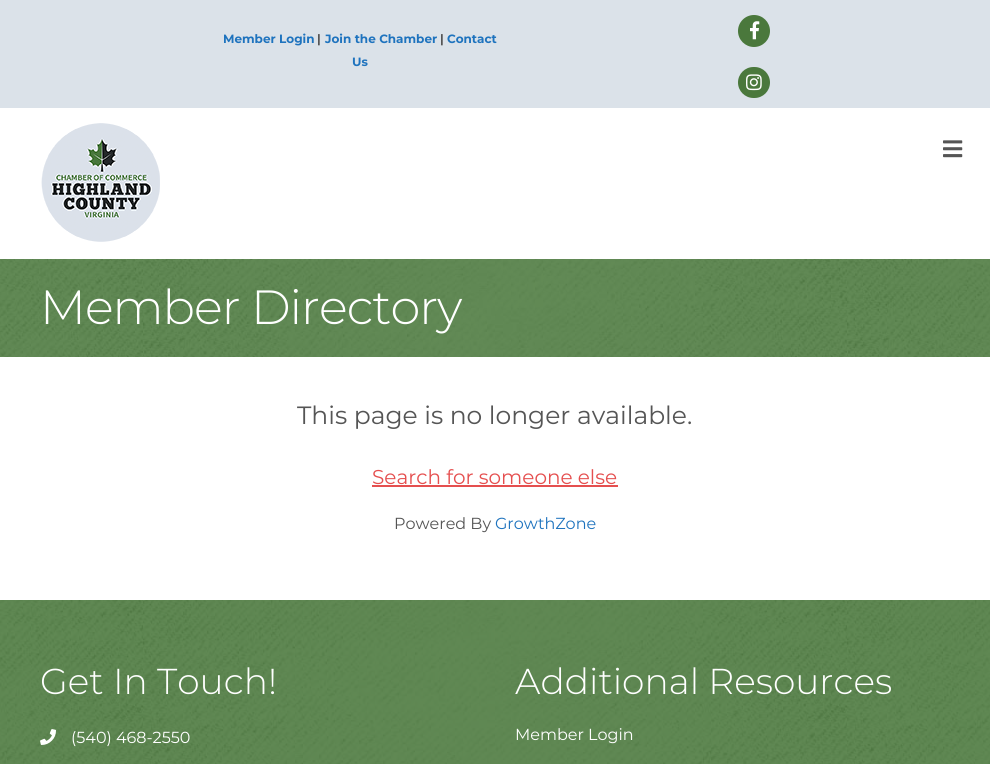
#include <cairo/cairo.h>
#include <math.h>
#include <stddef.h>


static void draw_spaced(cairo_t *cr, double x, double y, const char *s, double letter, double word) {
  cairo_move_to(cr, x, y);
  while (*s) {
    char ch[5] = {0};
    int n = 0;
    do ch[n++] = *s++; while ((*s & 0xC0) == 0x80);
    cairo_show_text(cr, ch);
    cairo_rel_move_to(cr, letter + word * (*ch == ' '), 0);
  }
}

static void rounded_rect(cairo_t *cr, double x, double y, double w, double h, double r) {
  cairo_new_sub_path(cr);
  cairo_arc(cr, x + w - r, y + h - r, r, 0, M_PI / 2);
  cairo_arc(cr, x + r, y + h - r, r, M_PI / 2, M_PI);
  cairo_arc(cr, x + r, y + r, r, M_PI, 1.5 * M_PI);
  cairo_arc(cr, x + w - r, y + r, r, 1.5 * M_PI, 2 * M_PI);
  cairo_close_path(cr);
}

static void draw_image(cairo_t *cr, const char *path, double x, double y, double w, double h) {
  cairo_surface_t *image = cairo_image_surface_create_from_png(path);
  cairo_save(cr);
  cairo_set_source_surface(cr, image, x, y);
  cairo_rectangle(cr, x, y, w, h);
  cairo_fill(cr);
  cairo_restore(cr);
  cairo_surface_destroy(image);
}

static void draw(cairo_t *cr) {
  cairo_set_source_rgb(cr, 1, 1, 1);
  cairo_paint(cr);
  cairo_set_source_rgb(cr, 219 / 255.0, 226 / 255.0, 233 / 255.0);
  cairo_rectangle(cr, 0, 0, 990, 108);
  cairo_fill(cr);
  cairo_set_source_rgb(cr, 74 / 255.0, 120 / 255.0, 60 / 255.0);
  cairo_arc(cr, 754, 31, 16, 0, 2 * M_PI);
  cairo_fill(cr);
  draw_image(cr, "images/1.png", 750, 21, 10, 19);
  rounded_rect(cr, 738, 67, 32, 31, 15.5);
  cairo_fill(cr);
  draw_image(cr, "images/2.png", 746, 74, 16, 17);
  draw_image(cr, "images/3.png", 41, 123, 119, 119);
  draw_image(cr, "images/4.png", 943, 140, 20, 18);
  draw_image(cr, "images/5.png", 0, 259, 990, 98);
  cairo_set_source_rgb(cr, 229 / 255.0, 79 / 255.0, 79 / 255.0);
  cairo_rectangle(cr, 372, 485, 246, 2);
  cairo_fill(cr);
  draw_image(cr, "images/6.png", 0, 600, 990, 164);
  draw_image(cr, "images/7.png", 40, 729, 16, 16);
  cairo_select_font_face(cr, "Montserrat", CAIRO_FONT_SLANT_NORMAL, CAIRO_FONT_WEIGHT_BOLD);
  cairo_set_font_size(cr, 12);
  cairo_set_source_rgb(cr, 30 / 255.0, 115 / 255.0, 190 / 255.0);
  cairo_move_to(cr, 223, 43);
  cairo_show_text(cr, "Member Login");
  cairo_set_source_rgb(cr, 85 / 255.0, 85 / 255.0, 85 / 255.0);
  cairo_move_to(cr, 317, 43);
  cairo_show_text(cr, "|");
  cairo_set_source_rgb(cr, 30 / 255.0, 115 / 255.0, 190 / 255.0);
  cairo_move_to(cr, 325, 43);
  cairo_show_text(cr, "Join the Chamber");
  cairo_set_source_rgb(cr, 85 / 255.0, 85 / 255.0, 85 / 255.0);
  cairo_move_to(cr, 440, 43);
  cairo_show_text(cr, "|");
  cairo_set_source_rgb(cr, 30 / 255.0, 115 / 255.0, 190 / 255.0);
  cairo_move_to(cr, 447, 43);
  cairo_show_text(cr, "Contact");
  cairo_move_to(cr, 352, 66);
  cairo_show_text(cr, "Us");
  cairo_select_font_face(cr, "Montserrat Light", CAIRO_FONT_SLANT_NORMAL, CAIRO_FONT_WEIGHT_NORMAL);
  cairo_set_font_size(cr, 48);
  cairo_set_source_rgb(cr, 1, 1, 1);
  draw_spaced(cr, 40, 324, "Member Directory", -1, 0);
  cairo_select_font_face(cr, "Montserrat", CAIRO_FONT_SLANT_NORMAL, CAIRO_FONT_WEIGHT_NORMAL);
  cairo_set_font_size(cr, 25);
  cairo_set_source_rgb(cr, 85 / 255.0, 85 / 255.0, 85 / 255.0);
  cairo_move_to(cr, 297, 424);
  cairo_show_text(cr, "This page is no longer available.");
  cairo_set_font_size(cr, 20);
  cairo_set_source_rgb(cr, 229 / 255.0, 79 / 255.0, 79 / 255.0);
  cairo_move_to(cr, 372, 484);
  cairo_show_text(cr, "Search for someone else");
  cairo_set_font_size(cr, 16);
  cairo_set_source_rgb(cr, 85 / 255.0, 85 / 255.0, 85 / 255.0);
  cairo_move_to(cr, 394, 529);
  cairo_show_text(cr, "Powered By");
  cairo_set_source_rgb(cr, 30 / 255.0, 115 / 255.0, 190 / 255.0);
  cairo_move_to(cr, 495, 529);
  cairo_show_text(cr, "GrowthZone");
  cairo_select_font_face(cr, "Montserrat Light", CAIRO_FONT_SLANT_NORMAL, CAIRO_FONT_WEIGHT_NORMAL);
  cairo_set_font_size(cr, 36);
  cairo_set_source_rgb(cr, 1, 1, 1);
  cairo_move_to(cr, 40, 694);
  cairo_show_text(cr, "Get In Touch!");
  cairo_select_font_face(cr, "Montserrat", CAIRO_FONT_SLANT_NORMAL, CAIRO_FONT_WEIGHT_NORMAL);
  cairo_set_font_size(cr, 16);
  cairo_move_to(cr, 71, 743);
  cairo_show_text(cr, "(540) 468-2550");
  cairo_select_font_face(cr, "Montserrat Light", CAIRO_FONT_SLANT_NORMAL, CAIRO_FONT_WEIGHT_NORMAL);
  cairo_set_font_size(cr, 36);
  cairo_move_to(cr, 515, 694);
  cairo_show_text(cr, "Additional Resources");
  cairo_select_font_face(cr, "Montserrat", CAIRO_FONT_SLANT_NORMAL, CAIRO_FONT_WEIGHT_NORMAL);
  cairo_set_font_size(cr, 16);
  cairo_move_to(cr, 515, 740);
  cairo_show_text(cr, "Member Login");
}

int main(void) {
  cairo_surface_t *surface = cairo_image_surface_create(CAIRO_FORMAT_RGB24, 990, 764);
  cairo_t *cr = cairo_create(surface);
  cairo_font_options_t *options = cairo_font_options_create();
  cairo_font_options_set_hint_metrics(options, CAIRO_HINT_METRICS_OFF);
  cairo_font_options_set_hint_style(options, CAIRO_HINT_STYLE_NONE);
  cairo_set_font_options(cr, options);
  cairo_set_miter_limit(cr, 4);
  draw(cr);
  cairo_surface_write_to_png(surface, "out.png");
  cairo_font_options_destroy(options);
  cairo_destroy(cr);
  cairo_surface_destroy(surface);
  return 0;
}
